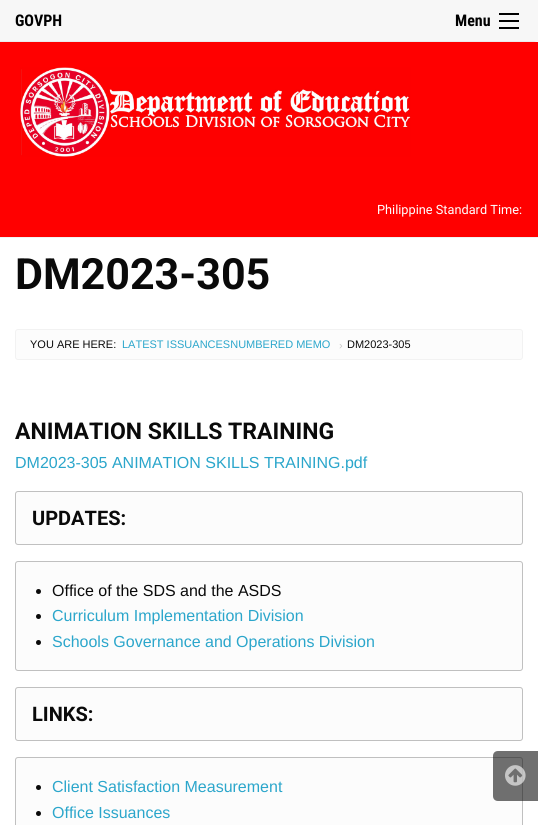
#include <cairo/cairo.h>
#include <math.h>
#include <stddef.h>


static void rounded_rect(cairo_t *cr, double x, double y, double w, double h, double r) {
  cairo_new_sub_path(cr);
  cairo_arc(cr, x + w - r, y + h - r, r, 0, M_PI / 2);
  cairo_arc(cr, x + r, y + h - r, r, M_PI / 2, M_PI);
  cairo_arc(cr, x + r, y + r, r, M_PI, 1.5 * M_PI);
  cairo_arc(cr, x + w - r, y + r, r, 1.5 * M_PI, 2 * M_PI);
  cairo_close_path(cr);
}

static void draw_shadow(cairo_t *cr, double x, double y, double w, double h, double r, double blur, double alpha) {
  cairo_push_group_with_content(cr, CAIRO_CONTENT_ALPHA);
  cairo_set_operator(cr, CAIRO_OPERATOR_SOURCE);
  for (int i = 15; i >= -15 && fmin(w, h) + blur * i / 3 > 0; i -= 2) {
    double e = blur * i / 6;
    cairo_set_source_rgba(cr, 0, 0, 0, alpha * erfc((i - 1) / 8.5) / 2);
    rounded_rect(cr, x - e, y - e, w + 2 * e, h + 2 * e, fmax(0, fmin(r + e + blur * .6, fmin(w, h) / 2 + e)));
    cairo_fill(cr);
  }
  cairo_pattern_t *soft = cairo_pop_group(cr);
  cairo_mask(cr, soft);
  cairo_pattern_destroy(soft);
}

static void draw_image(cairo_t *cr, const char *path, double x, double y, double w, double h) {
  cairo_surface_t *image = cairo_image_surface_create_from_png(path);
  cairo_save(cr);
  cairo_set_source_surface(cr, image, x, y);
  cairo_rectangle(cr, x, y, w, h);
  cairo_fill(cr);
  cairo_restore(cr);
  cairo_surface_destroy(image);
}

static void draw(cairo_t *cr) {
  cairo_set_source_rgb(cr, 1, 1, 1);
  cairo_paint(cr);
  cairo_set_source_rgb(cr, 0, 0, 0);
  draw_shadow(cr, -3, 0, 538, 41, 0, 2, 0.2);
  cairo_set_source_rgb(cr, 247 / 255.0, 247 / 255.0, 247 / 255.0);
  cairo_rectangle(cr, 0, 0, 538, 41);
  cairo_fill(cr);
  cairo_set_source_rgb(cr, 0, 0, 0);
  cairo_rectangle(cr, 499, 27, 20, 2);
  cairo_fill(cr);
  cairo_rectangle(cr, 499, 20, 20, 2);
  cairo_fill(cr);
  cairo_rectangle(cr, 499, 13, 20, 2);
  cairo_fill(cr);
  cairo_set_source_rgb(cr, 1, 0, 0);
  cairo_rectangle(cr, 0, 42, 538, 195);
  cairo_fill(cr);
  cairo_set_source_rgb(cr, 242 / 255.0, 242 / 255.0, 242 / 255.0);
  cairo_rectangle(cr, 0, 237, 538, 1);
  cairo_fill(cr);
  draw_image(cr, "images/1.png", 20, 67, 391, 90);
  cairo_set_source_rgb(cr, 252 / 255.0, 252 / 255.0, 252 / 255.0);
  rounded_rect(cr, 15.5, 329.5, 507, 30, 2.5);
  cairo_fill_preserve(cr);
  cairo_set_source_rgb(cr, 242 / 255.0, 242 / 255.0, 242 / 255.0);
  cairo_set_line_width(cr, 1);
  cairo_stroke(cr);
  cairo_set_source_rgb(cr, 252 / 255.0, 252 / 255.0, 252 / 255.0);
  rounded_rect(cr, 15.5, 491.5, 507, 53, 2.5);
  cairo_fill_preserve(cr);
  cairo_set_source_rgb(cr, 192 / 255.0, 192 / 255.0, 192 / 255.0);
  cairo_stroke(cr);
  cairo_set_source_rgb(cr, 252 / 255.0, 252 / 255.0, 252 / 255.0);
  rounded_rect(cr, 15.5, 561.5, 507, 109, 2.5);
  cairo_fill_preserve(cr);
  cairo_set_source_rgb(cr, 192 / 255.0, 192 / 255.0, 192 / 255.0);
  cairo_stroke(cr);
  cairo_set_source_rgb(cr, 10 / 255.0, 10 / 255.0, 10 / 255.0);
  cairo_arc(cr, 38.5, 591.5, 2.5, 0, 2 * M_PI);
  cairo_fill(cr);
  cairo_arc(cr, 38.5, 616.5, 2.5, 0, 2 * M_PI);
  cairo_fill(cr);
  cairo_arc(cr, 38.5, 642.5, 2.5, 0, 2 * M_PI);
  cairo_fill(cr);
  cairo_set_source_rgb(cr, 252 / 255.0, 252 / 255.0, 252 / 255.0);
  rounded_rect(cr, 15.5, 687.5, 507, 53, 2.5);
  cairo_fill_preserve(cr);
  cairo_set_source_rgb(cr, 192 / 255.0, 192 / 255.0, 192 / 255.0);
  cairo_stroke(cr);
  cairo_set_source_rgb(cr, 252 / 255.0, 252 / 255.0, 252 / 255.0);
  rounded_rect(cr, 15.5, 757.5, 507, 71, 2.5);
  cairo_fill_preserve(cr);
  cairo_set_source_rgb(cr, 192 / 255.0, 192 / 255.0, 192 / 255.0);
  cairo_stroke(cr);
  cairo_set_source_rgb(cr, 10 / 255.0, 10 / 255.0, 10 / 255.0);
  cairo_arc(cr, 38.5, 787.5, 2.5, 0, 2 * M_PI);
  cairo_fill(cr);
  cairo_arc(cr, 38.5, 813.5, 2.5, 0, 2 * M_PI);
  cairo_fill(cr);
  cairo_set_source_rgba(cr, 17 / 255.0, 17 / 255.0, 17 / 255.0, 0.6);
  cairo_new_path(cr);
  cairo_move_to(cr, 498, 751);
  cairo_line_to(cr, 538, 751);
  cairo_line_to(cr, 538, 801);
  cairo_line_to(cr, 498, 801);
  cairo_curve_to(cr, 495, 801, 493, 799, 493, 796);
  cairo_line_to(cr, 493, 756);
  cairo_curve_to(cr, 493, 753, 495, 751, 498, 751);
  cairo_close_path(cr);
  cairo_fill(cr);
  draw_image(cr, "images/2.png", 505, 765, 21, 21);
  cairo_select_font_face(cr, "Roboto Condensed", CAIRO_FONT_SLANT_NORMAL, CAIRO_FONT_WEIGHT_BOLD);
  cairo_set_font_size(cr, 16);
  cairo_set_source_rgb(cr, 0, 0, 0);
  cairo_move_to(cr, 15, 26);
  cairo_show_text(cr, "GOVPH");
  cairo_move_to(cr, 455, 26);
  cairo_show_text(cr, "Menu");
  cairo_select_font_face(cr, "Roboto", CAIRO_FONT_SLANT_NORMAL, CAIRO_FONT_WEIGHT_NORMAL);
  cairo_set_font_size(cr, 12.75);
  cairo_set_source_rgb(cr, 1, 1, 1);
  cairo_move_to(cr, 377, 214);
  cairo_show_text(cr, "Philippine Standard Time:");
  cairo_select_font_face(cr, "Roboto", CAIRO_FONT_SLANT_NORMAL, CAIRO_FONT_WEIGHT_BOLD);
  cairo_set_font_size(cr, 43);
  cairo_set_source_rgb(cr, 10 / 255.0, 10 / 255.0, 10 / 255.0);
  cairo_move_to(cr, 15, 289);
  cairo_show_text(cr, "DM2023-305");
  cairo_select_font_face(cr, "Liberation Sans", CAIRO_FONT_SLANT_NORMAL, CAIRO_FONT_WEIGHT_NORMAL);
  cairo_set_font_size(cr, 11);
  cairo_move_to(cr, 30, 348);
  cairo_show_text(cr, "YOU ARE HERE:");
  cairo_set_source_rgb(cr, 43 / 255.0, 166 / 255.0, 203 / 255.0);
  cairo_move_to(cr, 122, 348);
  cairo_show_text(cr, "LATEST ISSUANCESNUMBERED MEMO");
  cairo_set_source_rgb(cr, 202 / 255.0, 202 / 255.0, 202 / 255.0);
  cairo_move_to(cr, 339, 349);
  cairo_show_text(cr, "›");
  cairo_set_source_rgb(cr, 10 / 255.0, 10 / 255.0, 10 / 255.0);
  cairo_move_to(cr, 347, 348);
  cairo_show_text(cr, "DM2023-305");
  cairo_select_font_face(cr, "Roboto", CAIRO_FONT_SLANT_NORMAL, CAIRO_FONT_WEIGHT_BOLD);
  cairo_set_font_size(cr, 23);
  cairo_move_to(cr, 15, 439);
  cairo_show_text(cr, "ANIMATION SKILLS TRAINING");
  cairo_select_font_face(cr, "Liberation Sans", CAIRO_FONT_SLANT_NORMAL, CAIRO_FONT_WEIGHT_NORMAL);
  cairo_set_font_size(cr, 16);
  cairo_set_source_rgb(cr, 43 / 255.0, 166 / 255.0, 203 / 255.0);
  cairo_move_to(cr, 15, 468);
  cairo_show_text(cr, "DM2023-305 ANIMATION SKILLS TRAINING.pdf");
  cairo_select_font_face(cr, "Roboto", CAIRO_FONT_SLANT_NORMAL, CAIRO_FONT_WEIGHT_BOLD);
  cairo_set_font_size(cr, 20);
  cairo_set_source_rgb(cr, 10 / 255.0, 10 / 255.0, 10 / 255.0);
  cairo_move_to(cr, 32, 525);
  cairo_show_text(cr, "UPDATES:");
  cairo_select_font_face(cr, "Liberation Sans", CAIRO_FONT_SLANT_NORMAL, CAIRO_FONT_WEIGHT_NORMAL);
  cairo_set_font_size(cr, 16);
  cairo_move_to(cr, 52, 596);
  cairo_show_text(cr, "Office of the SDS and the ASDS");
  cairo_set_source_rgb(cr, 43 / 255.0, 166 / 255.0, 203 / 255.0);
  cairo_move_to(cr, 52, 621);
  cairo_show_text(cr, "Curriculum Implementation Division");
  cairo_move_to(cr, 52, 647);
  cairo_show_text(cr, "Schools Governance and Operations Division");
  cairo_select_font_face(cr, "Roboto", CAIRO_FONT_SLANT_NORMAL, CAIRO_FONT_WEIGHT_BOLD);
  cairo_set_font_size(cr, 20);
  cairo_set_source_rgb(cr, 10 / 255.0, 10 / 255.0, 10 / 255.0);
  cairo_move_to(cr, 32, 721);
  cairo_show_text(cr, "LINKS:");
  cairo_select_font_face(cr, "Liberation Sans", CAIRO_FONT_SLANT_NORMAL, CAIRO_FONT_WEIGHT_NORMAL);
  cairo_set_font_size(cr, 16);
  cairo_set_source_rgb(cr, 43 / 255.0, 166 / 255.0, 203 / 255.0);
  cairo_move_to(cr, 52, 792);
  cairo_show_text(cr, "Client Satisfaction Measurement");
  cairo_move_to(cr, 52, 818);
  cairo_show_text(cr, "Office Issuances");
}

int main(void) {
  cairo_surface_t *surface = cairo_image_surface_create(CAIRO_FORMAT_RGB24, 538, 825);
  cairo_t *cr = cairo_create(surface);
  cairo_font_options_t *options = cairo_font_options_create();
  cairo_font_options_set_hint_metrics(options, CAIRO_HINT_METRICS_OFF);
  cairo_font_options_set_hint_style(options, CAIRO_HINT_STYLE_NONE);
  cairo_set_font_options(cr, options);
  cairo_set_miter_limit(cr, 4);
  draw(cr);
  cairo_surface_write_to_png(surface, "out.png");
  cairo_font_options_destroy(options);
  cairo_destroy(cr);
  cairo_surface_destroy(surface);
  return 0;
}
